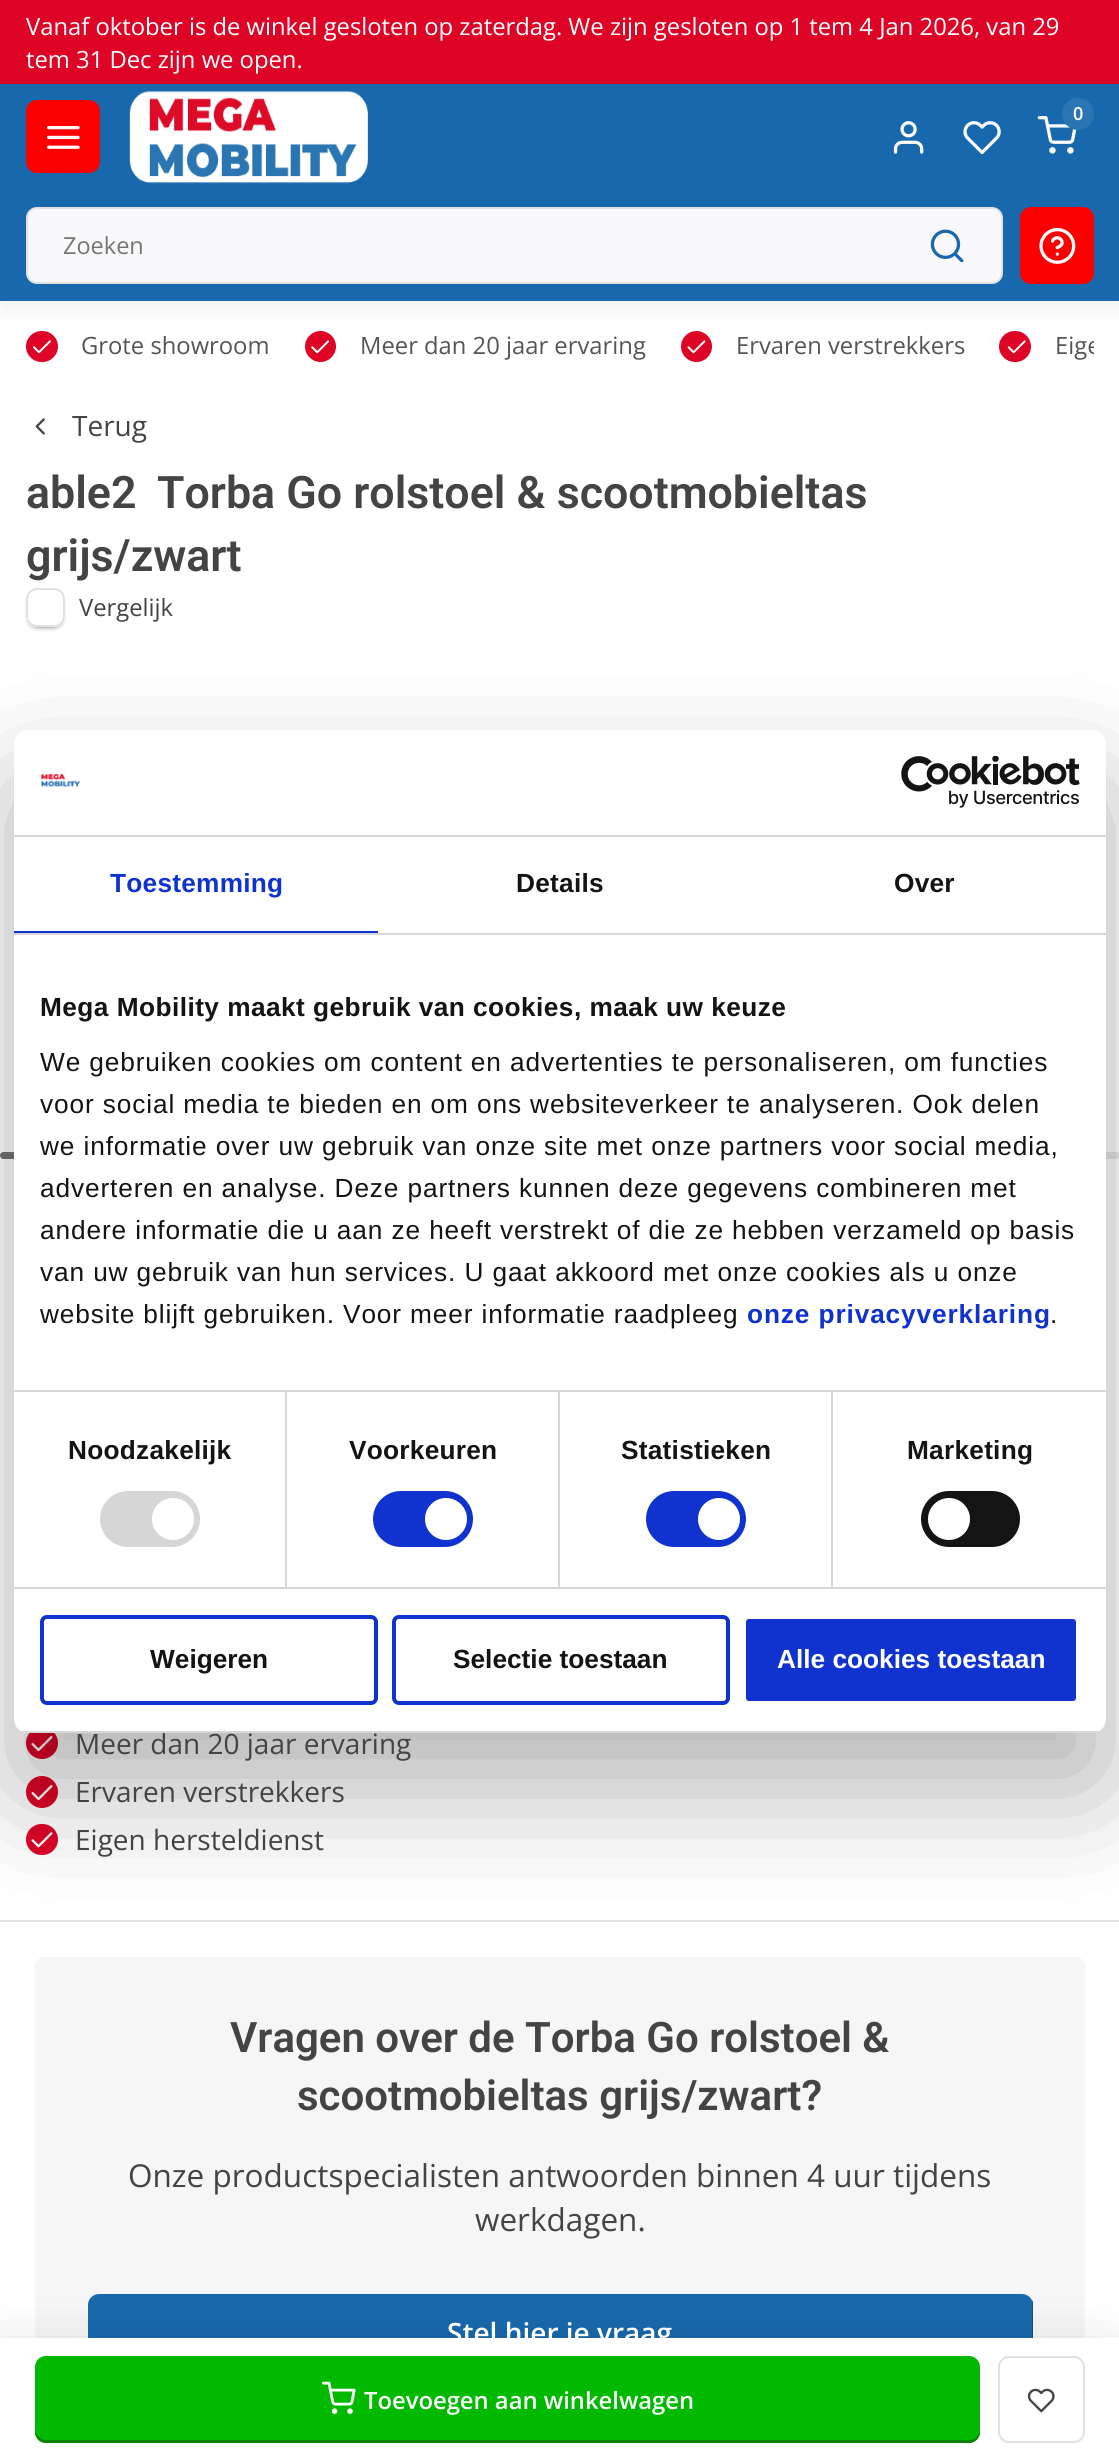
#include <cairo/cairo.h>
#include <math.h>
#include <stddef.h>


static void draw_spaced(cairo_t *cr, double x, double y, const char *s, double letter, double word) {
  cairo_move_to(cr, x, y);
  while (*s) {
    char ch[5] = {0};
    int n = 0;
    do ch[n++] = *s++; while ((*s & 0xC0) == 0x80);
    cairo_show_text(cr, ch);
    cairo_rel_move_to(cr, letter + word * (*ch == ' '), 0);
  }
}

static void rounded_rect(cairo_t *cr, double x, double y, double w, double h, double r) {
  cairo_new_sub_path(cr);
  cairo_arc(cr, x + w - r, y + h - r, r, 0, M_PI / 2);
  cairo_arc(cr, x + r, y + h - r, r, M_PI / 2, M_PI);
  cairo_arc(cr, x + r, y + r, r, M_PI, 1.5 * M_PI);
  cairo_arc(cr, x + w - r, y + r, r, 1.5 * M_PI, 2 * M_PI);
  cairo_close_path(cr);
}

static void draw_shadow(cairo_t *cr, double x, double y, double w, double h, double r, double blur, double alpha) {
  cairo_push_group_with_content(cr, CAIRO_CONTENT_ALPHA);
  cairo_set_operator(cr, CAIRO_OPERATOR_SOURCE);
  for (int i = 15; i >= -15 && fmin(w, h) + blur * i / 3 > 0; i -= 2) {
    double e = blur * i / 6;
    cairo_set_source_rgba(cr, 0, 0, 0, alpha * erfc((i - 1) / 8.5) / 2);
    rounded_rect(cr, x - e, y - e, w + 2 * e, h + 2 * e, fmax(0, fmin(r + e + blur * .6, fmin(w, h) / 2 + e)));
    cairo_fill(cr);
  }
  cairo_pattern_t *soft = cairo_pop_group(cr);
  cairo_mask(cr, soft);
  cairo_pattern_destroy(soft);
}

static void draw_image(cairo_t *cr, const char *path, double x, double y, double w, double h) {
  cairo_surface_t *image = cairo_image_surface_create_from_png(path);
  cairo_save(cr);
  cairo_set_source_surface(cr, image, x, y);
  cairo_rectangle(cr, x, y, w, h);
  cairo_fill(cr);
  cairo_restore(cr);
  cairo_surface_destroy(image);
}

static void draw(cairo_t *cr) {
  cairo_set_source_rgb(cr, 1, 1, 1);
  cairo_paint(cr);
  cairo_set_source_rgb(cr, 221 / 255.0, 4 / 255.0, 38 / 255.0);
  cairo_rectangle(cr, 0, 0, 1119, 84);
  cairo_fill(cr);
  rounded_rect(cr, 26, 331, 32, 31, 15.5);
  cairo_fill(cr);
  cairo_arc(cr, 320.5, 346.5, 15.5, 0, 2 * M_PI);
  cairo_fill(cr);
  cairo_arc(cr, 696.5, 346.5, 15.5, 0, 2 * M_PI);
  cairo_fill(cr);
  rounded_rect(cr, 999, 331, 32, 31, 15.5);
  cairo_fill(cr);
  cairo_set_source_rgb(cr, 0, 0, 0);
  draw_shadow(cr, 0, 93, 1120, 217, 0, 9, 0.05);
  cairo_set_source_rgb(cr, 23 / 255.0, 104 / 255.0, 172 / 255.0);
  cairo_rectangle(cr, 0, 84, 1119, 217);
  cairo_fill(cr);
  cairo_set_source_rgb(cr, 252 / 255.0, 0, 0);
  rounded_rect(cr, 26, 100, 74, 73, 11);
  cairo_fill(cr);
  draw_image(cr, "images/1.png", 47, 126, 33, 23);
  draw_image(cr, "images/2.png", 129, 91, 239, 93);
  draw_image(cr, "images/3.png", 1037, 116, 40, 38);
  cairo_set_source_rgb(cr, 43 / 255.0, 117 / 255.0, 178 / 255.0);
  cairo_arc(cr, 1078, 114, 16, 0, 2 * M_PI);
  cairo_fill(cr);
  draw_image(cr, "images/4.png", 893, 121, 31, 33);
  draw_image(cr, "images/5.png", 963, 121, 38, 34);
  cairo_set_source_rgb(cr, 249 / 255.0, 249 / 255.0, 251 / 255.0);
  rounded_rect(cr, 27, 208, 975, 75, 10);
  cairo_fill_preserve(cr);
  cairo_set_source_rgb(cr, 225 / 255.0, 225 / 255.0, 225 / 255.0);
  cairo_stroke(cr);
  draw_image(cr, "images/6.png", 930, 229, 34, 34);
  cairo_set_source_rgb(cr, 252 / 255.0, 0, 0);
  rounded_rect(cr, 1020, 207, 74, 77, 11);
  cairo_fill(cr);
  draw_image(cr, "images/7.png", 1039, 227, 37, 37);
  draw_image(cr, "images/8.png", 33, 340, 18, 14);
  draw_image(cr, "images/9.png", 311, 340, 19, 14);
  draw_image(cr, "images/10.png", 687, 340, 19, 14);
  draw_image(cr, "images/11.png", 1007, 340, 19, 14);
  cairo_set_source_rgb(cr, 225 / 255.0, 225 / 255.0, 225 / 255.0);
  cairo_rectangle(cr, 0, 1920, 1119, 2);
  cairo_fill(cr);
  draw_image(cr, "images/12.png", 35, 418, 10, 17);
  cairo_save(cr);
  cairo_set_fill_rule(cr, CAIRO_FILL_RULE_EVEN_ODD);
  cairo_new_path(cr);
  cairo_move_to(cr, 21, 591);
  cairo_line_to(cr, 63, 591);
  cairo_line_to(cr, 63, 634);
  cairo_line_to(cr, 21, 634);
  cairo_close_path(cr);
  cairo_move_to(cr, 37, 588);
  cairo_line_to(cr, 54, 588);
  cairo_curve_to(cr, 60, 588, 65, 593, 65, 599);
  cairo_line_to(cr, 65, 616);
  cairo_curve_to(cr, 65, 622, 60, 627, 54, 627);
  cairo_line_to(cr, 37, 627);
  cairo_curve_to(cr, 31, 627, 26, 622, 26, 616);
  cairo_line_to(cr, 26, 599);
  cairo_curve_to(cr, 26, 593, 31, 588, 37, 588);
  cairo_close_path(cr);
  cairo_clip(cr);
  cairo_set_source_rgb(cr, 153 / 255.0, 153 / 255.0, 153 / 255.0);
  draw_shadow(cr, 30, 600, 24, 25, 4, 2.5, 1);
  cairo_restore(cr);
  cairo_save(cr);
  cairo_set_fill_rule(cr, CAIRO_FILL_RULE_EVEN_ODD);
  cairo_new_path(cr);
  cairo_move_to(cr, 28, 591);
  cairo_line_to(cr, 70, 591);
  cairo_line_to(cr, 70, 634);
  cairo_line_to(cr, 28, 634);
  cairo_close_path(cr);
  cairo_move_to(cr, 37, 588);
  cairo_line_to(cr, 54, 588);
  cairo_curve_to(cr, 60, 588, 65, 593, 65, 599);
  cairo_line_to(cr, 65, 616);
  cairo_curve_to(cr, 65, 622, 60, 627, 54, 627);
  cairo_line_to(cr, 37, 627);
  cairo_curve_to(cr, 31, 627, 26, 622, 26, 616);
  cairo_line_to(cr, 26, 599);
  cairo_curve_to(cr, 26, 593, 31, 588, 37, 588);
  cairo_close_path(cr);
  cairo_clip(cr);
  cairo_set_source_rgb(cr, 153 / 255.0, 153 / 255.0, 153 / 255.0);
  draw_shadow(cr, 37, 600, 24, 25, 4, 2.5, 1);
  cairo_restore(cr);
  cairo_save(cr);
  cairo_set_fill_rule(cr, CAIRO_FILL_RULE_EVEN_ODD);
  cairo_new_path(cr);
  cairo_move_to(cr, 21, 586);
  cairo_line_to(cr, 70, 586);
  cairo_line_to(cr, 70, 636);
  cairo_line_to(cr, 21, 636);
  cairo_close_path(cr);
  cairo_move_to(cr, 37, 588);
  cairo_line_to(cr, 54, 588);
  cairo_curve_to(cr, 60, 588, 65, 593, 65, 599);
  cairo_line_to(cr, 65, 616);
  cairo_curve_to(cr, 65, 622, 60, 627, 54, 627);
  cairo_line_to(cr, 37, 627);
  cairo_curve_to(cr, 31, 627, 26, 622, 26, 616);
  cairo_line_to(cr, 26, 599);
  cairo_curve_to(cr, 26, 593, 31, 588, 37, 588);
  cairo_close_path(cr);
  cairo_clip(cr);
  cairo_set_source_rgb(cr, 153 / 255.0, 153 / 255.0, 153 / 255.0);
  draw_shadow(cr, 30, 595, 31, 32, 7, 2.5, 1);
  cairo_restore(cr);
  rounded_rect(cr, 27, 589, 37, 37, 10);
  cairo_stroke(cr);
  cairo_set_source_rgb(cr, 230 / 255.0, 230 / 255.0, 230 / 255.0);
  rounded_rect(cr, 0, 1152, 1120, 7, 3.5);
  cairo_fill(cr);
  cairo_set_source_rgba(cr, 0, 0, 0, 0.5);
  rounded_rect(cr, 0, 1152, 110, 7, 3.5);
  cairo_fill(cr);
  cairo_set_source_rgb(cr, 221 / 255.0, 4 / 255.0, 38 / 255.0);
  cairo_arc(cr, 42, 1743, 16, 0, 2 * M_PI);
  cairo_fill(cr);
  draw_image(cr, "images/13.png", 31, 1736, 22, 16);
  cairo_arc(cr, 42, 1792, 16, 0, 2 * M_PI);
  cairo_fill(cr);
  draw_image(cr, "images/13.png", 31, 1785, 22, 16);
  rounded_rect(cr, 26, 1824, 32, 31, 15.5);
  cairo_fill(cr);
  draw_image(cr, "images/14.png", 31, 1832, 22, 16);
  cairo_set_source_rgb(cr, 246 / 255.0, 246 / 255.0, 246 / 255.0);
  rounded_rect(cr, 35, 1957, 1050, 467, 9);
  cairo_fill(cr);
  cairo_set_source_rgb(cr, 23 / 255.0, 104 / 255.0, 172 / 255.0);
  rounded_rect(cr, 88, 2294, 945, 77, 11);
  cairo_fill(cr);
  cairo_set_source_rgb(cr, 26 / 255.0, 78 / 255.0, 111 / 255.0);
  cairo_new_path(cr);
  cairo_move_to(cr, 88, 2357);
  cairo_line_to(cr, 88, 2360);
  cairo_curve_to(cr, 88, 2366, 93, 2371, 99, 2371);
  cairo_line_to(cr, 1022, 2371);
  cairo_curve_to(cr, 1028, 2371, 1033, 2366, 1033, 2360);
  cairo_line_to(cr, 1033, 2305);
  cairo_curve_to(cr, 1033, 2303, 1033, 2302, 1032, 2300);
  cairo_line_to(cr, 1032, 2357);
  cairo_curve_to(cr, 1032, 2363, 1028, 2368, 1022, 2368);
  cairo_line_to(cr, 98, 2368);
  cairo_curve_to(cr, 92, 2368, 88, 2363, 88, 2357);
  cairo_close_path(cr);
  cairo_fill(cr);
  cairo_set_source_rgb(cr, 0, 0, 0);
  draw_shadow(cr, -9, 2349, 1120, 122, 0, 26, 0.15);
  cairo_set_source_rgb(cr, 1, 1, 1);
  cairo_rectangle(cr, 0, 2338, 1119, 122);
  cairo_fill(cr);
  cairo_set_source_rgb(cr, 0, 185 / 255.0, 0);
  rounded_rect(cr, 35, 2356, 945, 87, 11);
  cairo_fill(cr);
  cairo_set_source_rgb(cr, 11 / 255.0, 131 / 255.0, 0);
  cairo_new_path(cr);
  cairo_move_to(cr, 35, 2429);
  cairo_line_to(cr, 35, 2432);
  cairo_curve_to(cr, 35, 2438, 40, 2443, 46, 2443);
  cairo_line_to(cr, 969, 2443);
  cairo_curve_to(cr, 975, 2443, 980, 2438, 980, 2432);
  cairo_line_to(cr, 980, 2429);
  cairo_curve_to(cr, 980, 2435, 975, 2440, 970, 2440);
  cairo_line_to(cr, 46, 2440);
  cairo_curve_to(cr, 40, 2440, 35, 2435, 35, 2429);
  cairo_close_path(cr);
  cairo_fill(cr);
  draw_image(cr, "images/15.png", 322, 2381, 34, 33);
  rounded_rect(cr, 999, 2357, 85, 85, 10);
  cairo_set_source_rgb(cr, 225 / 255.0, 225 / 255.0, 225 / 255.0);
  cairo_stroke(cr);
  draw_image(cr, "images/16.png", 1027, 2388, 28, 25);
  cairo_set_source_rgb(cr, 0, 0, 0);
  draw_shadow(cr, 14, 786, 1092, 1003, 14, 59.5, 0.3);
  cairo_select_font_face(cr, "Open Sans", CAIRO_FONT_SLANT_NORMAL, CAIRO_FONT_WEIGHT_NORMAL);
  cairo_set_font_size(cr, 23.8);
  cairo_set_source_rgb(cr, 1, 1, 1);
  cairo_move_to(cr, 26, 35);
  cairo_show_text(cr, "Vanaf oktober is de winkel gesloten op zaterdag. We zijn gesloten op 1 tem 4 Jan 2026, van 29");
  cairo_move_to(cr, 26, 68);
  cairo_show_text(cr, "tem 31 Dec zijn we open.");
  cairo_select_font_face(cr, "Open Sans SemiBold", CAIRO_FONT_SLANT_NORMAL, CAIRO_FONT_WEIGHT_NORMAL);
  cairo_set_font_size(cr, 18);
  cairo_move_to(cr, 1073, 120);
  cairo_show_text(cr, "0");
  cairo_select_font_face(cr, "Open Sans", CAIRO_FONT_SLANT_NORMAL, CAIRO_FONT_WEIGHT_NORMAL);
  cairo_set_font_size(cr, 23.5);
  cairo_set_source_rgb(cr, 117 / 255.0, 117 / 255.0, 117 / 255.0);
  cairo_move_to(cr, 63, 254);
  cairo_show_text(cr, "Zoeken");
  cairo_set_font_size(cr, 23.8);
  cairo_set_source_rgb(cr, 85 / 255.0, 85 / 255.0, 85 / 255.0);
  cairo_move_to(cr, 81, 354);
  cairo_show_text(cr, "Grote showroom");
  cairo_move_to(cr, 360, 354);
  cairo_show_text(cr, "Meer dan 20 jaar ervaring");
  cairo_move_to(cr, 736, 354);
  cairo_show_text(cr, "Ervaren verstrekkers");
  cairo_save(cr);
  cairo_rectangle(cr, 26, 301, 1068, 88);
  cairo_clip(cr);
  cairo_move_to(cr, 1055, 354);
  cairo_show_text(cr, "Eige");
  cairo_restore(cr);
  cairo_set_font_size(cr, 28);
  cairo_set_source_rgb(cr, 68 / 255.0, 68 / 255.0, 68 / 255.0);
  cairo_move_to(cr, 72, 436);
  cairo_show_text(cr, "Terug");
  cairo_select_font_face(cr, "Roboto SemiBold", CAIRO_FONT_SLANT_NORMAL, CAIRO_FONT_WEIGHT_NORMAL);
  cairo_set_font_size(cr, 44.75);
  cairo_move_to(cr, 26, 508);
  cairo_show_text(cr, "able2");
  cairo_move_to(cr, 157, 508);
  cairo_show_text(cr, "Torba Go rolstoel & scootmobieltas");
  cairo_move_to(cr, 26, 571);
  cairo_show_text(cr, "grijs/zwart");
  cairo_select_font_face(cr, "Open Sans", CAIRO_FONT_SLANT_NORMAL, CAIRO_FONT_WEIGHT_NORMAL);
  cairo_set_font_size(cr, 23.8);
  cairo_move_to(cr, 79, 616);
  cairo_show_text(cr, "Vergelijk");
  cairo_set_font_size(cr, 28);
  cairo_move_to(cr, 75, 1754);
  cairo_show_text(cr, "Meer dan 20 jaar ervaring");
  cairo_move_to(cr, 75, 1802);
  cairo_show_text(cr, "Ervaren verstrekkers");
  cairo_move_to(cr, 75, 1850);
  cairo_show_text(cr, "Eigen hersteldienst");
  cairo_select_font_face(cr, "Open Sans SemiBold", CAIRO_FONT_SLANT_NORMAL, CAIRO_FONT_WEIGHT_NORMAL);
  cairo_set_font_size(cr, 23.8);
  cairo_set_source_rgb(cr, 1, 1, 1);
  cairo_move_to(cr, 364, 2409);
  cairo_show_text(cr, "Toevoegen aan winkelwagen");
  cairo_select_font_face(cr, "Roboto SemiBold", CAIRO_FONT_SLANT_NORMAL, CAIRO_FONT_WEIGHT_NORMAL);
  cairo_set_font_size(cr, 42);
  cairo_set_source_rgb(cr, 68 / 255.0, 68 / 255.0, 68 / 255.0);
  cairo_move_to(cr, 230, 2052);
  cairo_show_text(cr, "Vragen over de Torba Go rolstoel &");
  cairo_move_to(cr, 297, 2110);
  cairo_show_text(cr, "scootmobieltas grijs/zwart?");
  cairo_select_font_face(cr, "Open Sans", CAIRO_FONT_SLANT_NORMAL, CAIRO_FONT_WEIGHT_NORMAL);
  cairo_set_font_size(cr, 31.5);
  cairo_move_to(cr, 128, 2187);
  cairo_show_text(cr, "Onze productspecialisten antwoorden binnen 4 uur tijdens");
  cairo_move_to(cr, 475, 2231);
  cairo_show_text(cr, "werkdagen.");
  cairo_select_font_face(cr, "Open Sans SemiBold", CAIRO_FONT_SLANT_NORMAL, CAIRO_FONT_WEIGHT_NORMAL);
  cairo_set_font_size(cr, 28);
  cairo_set_source_rgb(cr, 1, 1, 1);
  cairo_move_to(cr, 447, 2343);
  cairo_show_text(cr, "Stel hier je vraag");
  rounded_rect(cr, 14, 730, 1092, 1003, 14);
  cairo_fill(cr);
  cairo_set_source_rgb(cr, 214 / 255.0, 214 / 255.0, 214 / 255.0);
  cairo_rectangle(cr, 14, 835, 1092, 2);
  cairo_fill(cr);
  draw_image(cr, "images/17.png", 41, 774, 40, 14);
  draw_image(cr, "images/18.png", 901, 756, 179, 52);
  cairo_rectangle(cr, 14, 933, 1092, 2);
  cairo_fill(cr);
  cairo_set_source_rgb(cr, 16 / 255.0, 50 / 255.0, 207 / 255.0);
  cairo_rectangle(cr, 14, 931, 364, 2);
  cairo_fill(cr);
  cairo_select_font_face(cr, "Liberation Sans", CAIRO_FONT_SLANT_NORMAL, CAIRO_FONT_WEIGHT_BOLD);
  cairo_set_font_size(cr, 26.25);
  draw_spaced(cr, 110, 892, "Toestemming", 0.25, 0);
  cairo_set_source_rgb(cr, 20 / 255.0, 20 / 255.0, 20 / 255.0);
  draw_spaced(cr, 516, 892, "Details", 0.25, 0);
  draw_spaced(cr, 894, 892, "Over", 0.25, 0);
  draw_spaced(cr, 40, 1016, "Mega Mobility maakt gebruik van cookies, maak uw keuze", 0.45, 0);
  cairo_select_font_face(cr, "Liberation Sans", CAIRO_FONT_SLANT_NORMAL, CAIRO_FONT_WEIGHT_NORMAL);
  draw_spaced(cr, 40, 1071, "We gebruiken cookies om content en advertenties te personaliseren, om functies", 0.88, 0);
  draw_spaced(cr, 40, 1113, "voor social media te bieden en om ons websiteverkeer te analyseren. Ook delen", 0.88, 0);
  draw_spaced(cr, 40, 1155, "we informatie over uw gebruik van onze site met onze partners voor social media,", 0.88, 0);
  draw_spaced(cr, 40, 1197, "adverteren en analyse. Deze partners kunnen deze gegevens combineren met", 0.88, 0);
  draw_spaced(cr, 40, 1239, "andere informatie die u aan ze heeft verstrekt of die ze hebben verzameld op basis", 0.88, 0);
  draw_spaced(cr, 40, 1281, "van uw gebruik van hun services. U gaat akkoord met onze cookies als u onze", 0.88, 0);
  draw_spaced(cr, 40, 1323, "website blijft gebruiken. Voor meer informatie raadpleeg", 0.88, 0);
  cairo_select_font_face(cr, "Liberation Sans", CAIRO_FONT_SLANT_NORMAL, CAIRO_FONT_WEIGHT_BOLD);
  cairo_set_source_rgb(cr, 16 / 255.0, 50 / 255.0, 207 / 255.0);
  draw_spaced(cr, 747, 1323, "onze privacyverklaring", 0.88, 0);
  cairo_select_font_face(cr, "Liberation Sans", CAIRO_FONT_SLANT_NORMAL, CAIRO_FONT_WEIGHT_NORMAL);
  cairo_set_source_rgb(cr, 20 / 255.0, 20 / 255.0, 20 / 255.0);
  draw_spaced(cr, 1050, 1323, ".", 0.88, 0);
  cairo_set_source_rgb(cr, 214 / 255.0, 214 / 255.0, 214 / 255.0);
  cairo_rectangle(cr, 14, 1587, 1092, 2);
  cairo_fill(cr);
  cairo_rectangle(cr, 285, 1391, 2, 196);
  cairo_fill(cr);
  cairo_select_font_face(cr, "Liberation Sans", CAIRO_FONT_SLANT_NORMAL, CAIRO_FONT_WEIGHT_BOLD);
  cairo_set_source_rgb(cr, 20 / 255.0, 20 / 255.0, 20 / 255.0);
  draw_spaced(cr, 68, 1459, "Noodzakelijk", 0.25, 0);
  cairo_set_source_rgb(cr, 214 / 255.0, 214 / 255.0, 214 / 255.0);
  rounded_rect(cr, 100, 1491, 100, 56, 28);
  cairo_fill(cr);
  cairo_set_source_rgb(cr, 1, 1, 1);
  cairo_arc(cr, 173, 1519, 21, 0, 2 * M_PI);
  cairo_fill(cr);
  cairo_set_source_rgb(cr, 214 / 255.0, 214 / 255.0, 214 / 255.0);
  cairo_rectangle(cr, 558, 1391, 2, 196);
  cairo_fill(cr);
  cairo_set_source_rgb(cr, 20 / 255.0, 20 / 255.0, 20 / 255.0);
  draw_spaced(cr, 349, 1459, "Voorkeuren", 0.25, 0);
  cairo_set_source_rgb(cr, 16 / 255.0, 50 / 255.0, 207 / 255.0);
  rounded_rect(cr, 373, 1491, 100, 56, 28);
  cairo_fill(cr);
  cairo_set_source_rgb(cr, 1, 1, 1);
  cairo_arc(cr, 446, 1519, 21, 0, 2 * M_PI);
  cairo_fill(cr);
  cairo_set_source_rgb(cr, 214 / 255.0, 214 / 255.0, 214 / 255.0);
  cairo_rectangle(cr, 831, 1391, 2, 196);
  cairo_fill(cr);
  cairo_rectangle(cr, 14, 1390, 1092, 2);
  cairo_fill(cr);
  cairo_set_source_rgb(cr, 20 / 255.0, 20 / 255.0, 20 / 255.0);
  draw_spaced(cr, 621, 1459, "Statistieken", 0.25, 0);
  cairo_set_source_rgb(cr, 16 / 255.0, 50 / 255.0, 207 / 255.0);
  rounded_rect(cr, 646, 1491, 100, 56, 28);
  cairo_fill(cr);
  cairo_set_source_rgb(cr, 1, 1, 1);
  cairo_arc(cr, 719, 1519, 21, 0, 2 * M_PI);
  cairo_fill(cr);
  cairo_set_source_rgb(cr, 20 / 255.0, 20 / 255.0, 20 / 255.0);
  draw_spaced(cr, 907, 1459, "Marketing", 0.25, 0);
  rounded_rect(cr, 921, 1491, 99, 56, 28);
  cairo_fill(cr);
  cairo_set_source_rgb(cr, 1, 1, 1);
  cairo_arc(cr, 949, 1519, 21, 0, 2 * M_PI);
  cairo_fill(cr);
  cairo_save(cr);
  rounded_rect(cr, 14, 730, 1092, 1003, 14);
  cairo_clip(cr);
  cairo_set_source_rgb(cr, 214 / 255.0, 214 / 255.0, 214 / 255.0);
  cairo_rectangle(cr, 14, 1731, 1092, 2);
  cairo_fill(cr);
  cairo_restore(cr);
  rounded_rect(cr, 42, 1617, 334, 86, 5);
  cairo_set_source_rgb(cr, 16 / 255.0, 50 / 255.0, 207 / 255.0);
  cairo_set_line_width(cr, 4);
  cairo_stroke(cr);
  cairo_set_source_rgb(cr, 20 / 255.0, 20 / 255.0, 20 / 255.0);
  cairo_move_to(cr, 150, 1668);
  cairo_show_text(cr, "Weigeren");
  rounded_rect(cr, 394, 1617, 334, 86, 5);
  cairo_set_source_rgb(cr, 16 / 255.0, 50 / 255.0, 207 / 255.0);
  cairo_stroke(cr);
  cairo_set_source_rgb(cr, 20 / 255.0, 20 / 255.0, 20 / 255.0);
  cairo_move_to(cr, 453, 1668);
  cairo_show_text(cr, "Selectie toestaan");
  cairo_set_source_rgb(cr, 16 / 255.0, 50 / 255.0, 207 / 255.0);
  rounded_rect(cr, 744, 1617, 334, 86, 5);
  cairo_fill_preserve(cr);
  cairo_set_source_rgb(cr, 1, 1, 1);
  cairo_stroke(cr);
  cairo_move_to(cr, 777, 1668);
  cairo_show_text(cr, "Alle cookies toestaan");
}

int main(void) {
  cairo_surface_t *surface = cairo_image_surface_create(CAIRO_FORMAT_RGB24, 1119, 2460);
  cairo_t *cr = cairo_create(surface);
  cairo_font_options_t *options = cairo_font_options_create();
  cairo_font_options_set_hint_metrics(options, CAIRO_HINT_METRICS_OFF);
  cairo_font_options_set_hint_style(options, CAIRO_HINT_STYLE_NONE);
  cairo_set_font_options(cr, options);
  cairo_set_miter_limit(cr, 4);
  draw(cr);
  cairo_surface_write_to_png(surface, "out.png");
  cairo_font_options_destroy(options);
  cairo_destroy(cr);
  cairo_surface_destroy(surface);
  return 0;
}
